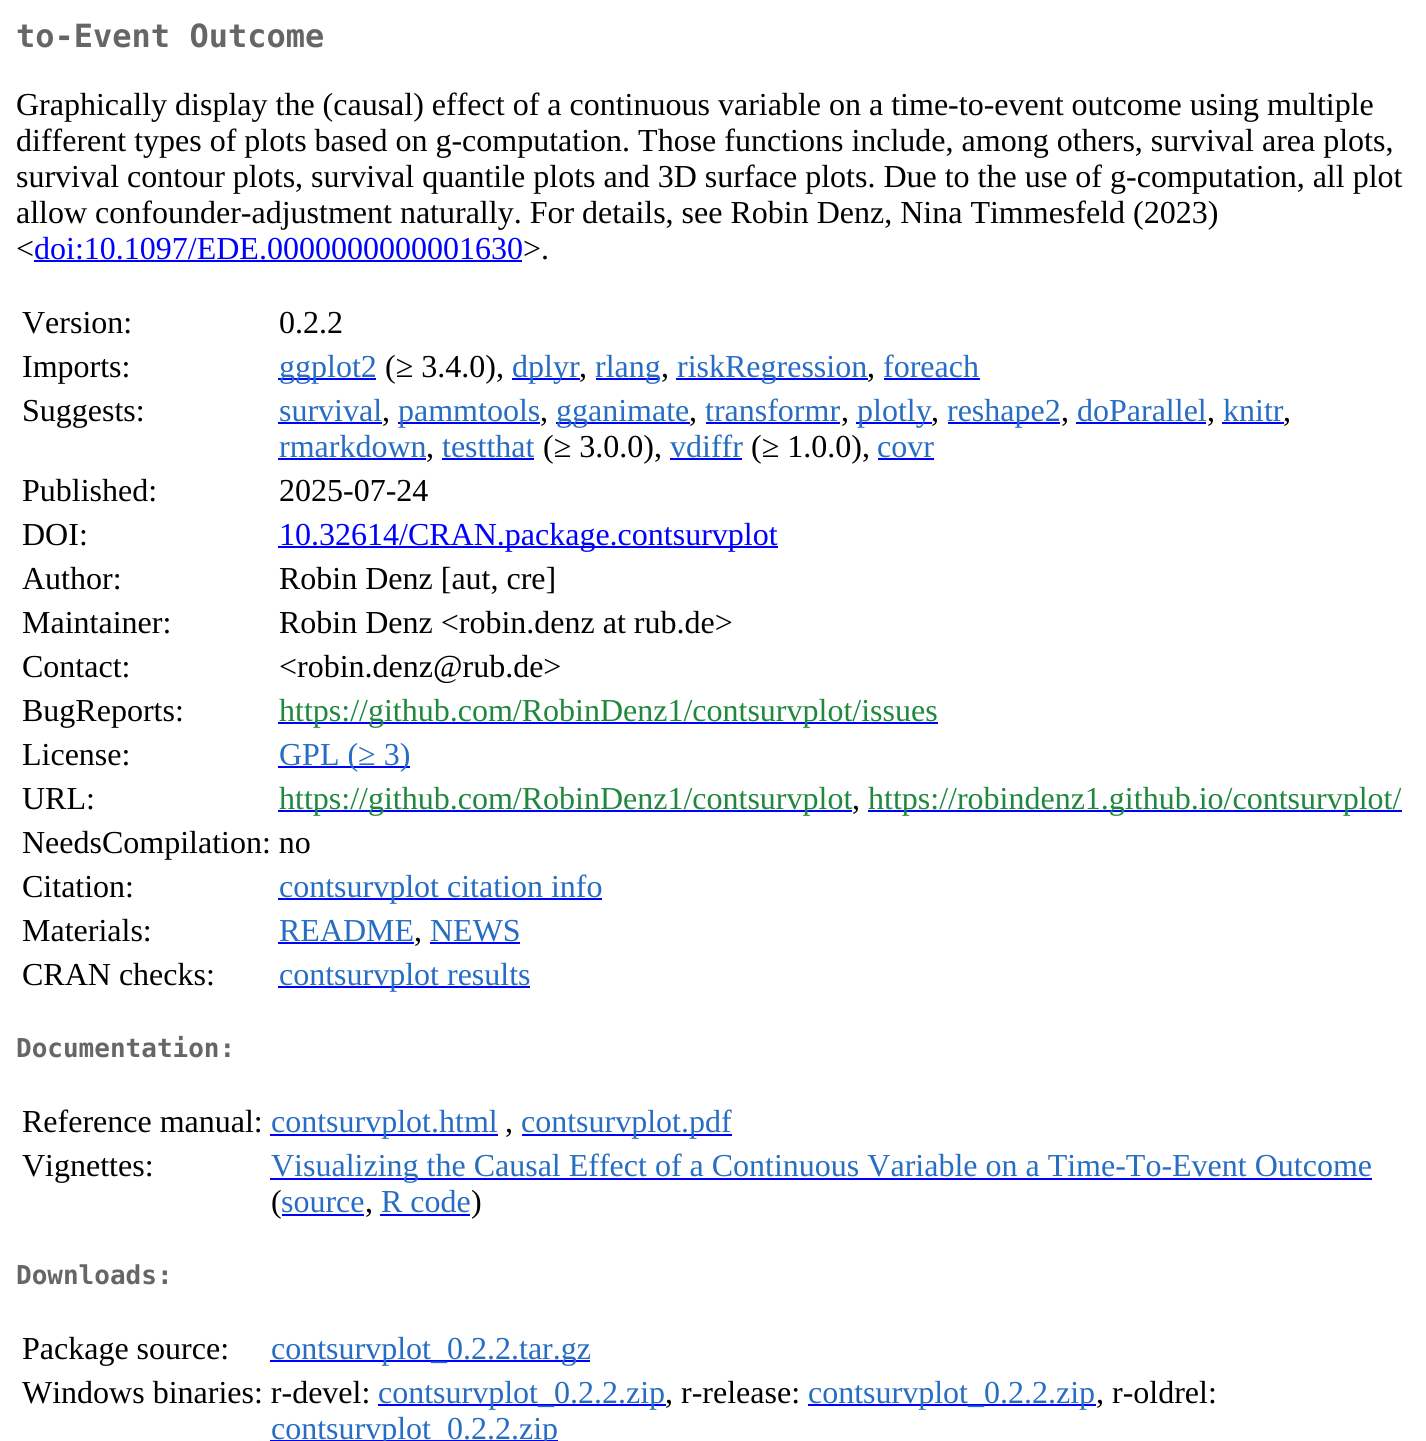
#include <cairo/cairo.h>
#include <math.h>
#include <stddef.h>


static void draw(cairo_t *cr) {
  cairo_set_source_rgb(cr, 1, 1, 1);
  cairo_paint(cr);
  cairo_set_source_rgb(cr, 0, 0, 1);
  cairo_rectangle(cr, 34, 260, 488, 2);
  cairo_fill(cr);
  cairo_rectangle(cr, 278, 378, 98, 2);
  cairo_fill(cr);
  cairo_rectangle(cr, 512, 378, 68, 2);
  cairo_fill(cr);
  cairo_rectangle(cr, 596, 378, 64, 2);
  cairo_fill(cr);
  cairo_rectangle(cr, 676, 378, 192, 2);
  cairo_fill(cr);
  cairo_rectangle(cr, 884, 378, 96, 2);
  cairo_fill(cr);
  cairo_rectangle(cr, 278, 422, 104, 2);
  cairo_fill(cr);
  cairo_rectangle(cr, 398, 422, 142, 2);
  cairo_fill(cr);
  cairo_rectangle(cr, 556, 422, 134, 2);
  cairo_fill(cr);
  cairo_rectangle(cr, 706, 422, 134, 2);
  cairo_fill(cr);
  cairo_rectangle(cr, 856, 422, 76, 2);
  cairo_fill(cr);
  cairo_rectangle(cr, 948, 422, 112, 2);
  cairo_fill(cr);
  cairo_rectangle(cr, 1076, 422, 130, 2);
  cairo_fill(cr);
  cairo_rectangle(cr, 1222, 422, 62, 2);
  cairo_fill(cr);
  cairo_rectangle(cr, 278, 458, 148, 2);
  cairo_fill(cr);
  cairo_rectangle(cr, 442, 458, 92, 2);
  cairo_fill(cr);
  cairo_rectangle(cr, 670, 458, 72, 2);
  cairo_fill(cr);
  cairo_rectangle(cr, 878, 458, 56, 2);
  cairo_fill(cr);
  cairo_rectangle(cr, 278, 546, 500, 2);
  cairo_fill(cr);
  cairo_rectangle(cr, 278, 722, 660, 2);
  cairo_fill(cr);
  cairo_rectangle(cr, 278, 766, 132, 2);
  cairo_fill(cr);
  cairo_rectangle(cr, 278, 810, 574, 2);
  cairo_fill(cr);
  cairo_rectangle(cr, 868, 810, 534, 2);
  cairo_fill(cr);
  cairo_rectangle(cr, 278, 898, 324, 2);
  cairo_fill(cr);
  cairo_rectangle(cr, 278, 942, 136, 2);
  cairo_fill(cr);
  cairo_rectangle(cr, 430, 942, 90, 2);
  cairo_fill(cr);
  cairo_rectangle(cr, 278, 986, 252, 2);
  cairo_fill(cr);
  cairo_rectangle(cr, 270, 1134, 228, 2);
  cairo_fill(cr);
  cairo_rectangle(cr, 522, 1134, 210, 2);
  cairo_fill(cr);
  cairo_rectangle(cr, 270, 1178, 1102, 2);
  cairo_fill(cr);
  cairo_rectangle(cr, 282, 1214, 82, 2);
  cairo_fill(cr);
  cairo_rectangle(cr, 380, 1214, 90, 2);
  cairo_fill(cr);
  cairo_rectangle(cr, 270, 1360, 320, 2);
  cairo_fill(cr);
  cairo_rectangle(cr, 378, 1404, 288, 2);
  cairo_fill(cr);
  cairo_rectangle(cr, 808, 1404, 288, 2);
  cairo_fill(cr);
  cairo_rectangle(cr, 270, 1440, 288, 1);
  cairo_fill(cr);
  cairo_select_font_face(cr, "DejaVu Sans Mono", CAIRO_FONT_SLANT_NORMAL, CAIRO_FONT_WEIGHT_BOLD);
  cairo_set_font_size(cr, 32);
  cairo_set_source_rgb(cr, 102 / 255.0, 102 / 255.0, 102 / 255.0);
  cairo_move_to(cr, 16, 47);
  cairo_show_text(cr, "to-Event Outcome");
  cairo_select_font_face(cr, "Liberation Serif", CAIRO_FONT_SLANT_NORMAL, CAIRO_FONT_WEIGHT_NORMAL);
  cairo_set_source_rgb(cr, 0, 0, 0);
  cairo_move_to(cr, 16, 115);
  cairo_show_text(cr, "Graphically display the (causal) effect of a continuous variable on a time-to-event outcome using multiple");
  cairo_move_to(cr, 16, 151);
  cairo_show_text(cr, "different types of plots based on g-computation. Those functions include, among others, survival area plots,");
  cairo_move_to(cr, 16, 187);
  cairo_show_text(cr, "survival contour plots, survival quantile plots and 3D surface plots. Due to the use of g-computation, all plot");
  cairo_move_to(cr, 16, 223);
  cairo_show_text(cr, "allow confounder-adjustment naturally. For details, see Robin Denz, Nina Timmesfeld (2023)");
  cairo_move_to(cr, 16, 259);
  cairo_show_text(cr, "<");
  cairo_set_source_rgb(cr, 0, 0, 1);
  cairo_move_to(cr, 34, 259);
  cairo_show_text(cr, "doi:10.1097/EDE.0000000000001630");
  cairo_set_source_rgb(cr, 0, 0, 0);
  cairo_move_to(cr, 523, 259);
  cairo_show_text(cr, ">.");
  cairo_move_to(cr, 22, 333);
  cairo_show_text(cr, "Version:");
  cairo_move_to(cr, 279, 333);
  cairo_show_text(cr, "0.2.2");
  cairo_move_to(cr, 22, 377);
  cairo_show_text(cr, "Imports:");
  cairo_set_source_rgb(cr, 39 / 255.0, 109 / 255.0, 195 / 255.0);
  cairo_move_to(cr, 279, 377);
  cairo_show_text(cr, "ggplot2");
  cairo_set_source_rgb(cr, 0, 0, 0);
  cairo_move_to(cr, 385, 377);
  cairo_show_text(cr, "(≥ 3.4.0),");
  cairo_set_source_rgb(cr, 39 / 255.0, 109 / 255.0, 195 / 255.0);
  cairo_move_to(cr, 512, 377);
  cairo_show_text(cr, "dplyr");
  cairo_set_source_rgb(cr, 0, 0, 0);
  cairo_move_to(cr, 579, 377);
  cairo_show_text(cr, ",");
  cairo_set_source_rgb(cr, 39 / 255.0, 109 / 255.0, 195 / 255.0);
  cairo_move_to(cr, 595, 377);
  cairo_show_text(cr, "rlang");
  cairo_set_source_rgb(cr, 0, 0, 0);
  cairo_move_to(cr, 661, 377);
  cairo_show_text(cr, ",");
  cairo_set_source_rgb(cr, 39 / 255.0, 109 / 255.0, 195 / 255.0);
  cairo_move_to(cr, 677, 377);
  cairo_show_text(cr, "riskRegression");
  cairo_set_source_rgb(cr, 0, 0, 0);
  cairo_move_to(cr, 867, 377);
  cairo_show_text(cr, ",");
  cairo_set_source_rgb(cr, 39 / 255.0, 109 / 255.0, 195 / 255.0);
  cairo_move_to(cr, 883, 377);
  cairo_show_text(cr, "foreach");
  cairo_set_source_rgb(cr, 0, 0, 0);
  cairo_move_to(cr, 22, 421);
  cairo_show_text(cr, "Suggests:");
  cairo_set_source_rgb(cr, 39 / 255.0, 109 / 255.0, 195 / 255.0);
  cairo_move_to(cr, 279, 421);
  cairo_show_text(cr, "survival");
  cairo_set_source_rgb(cr, 0, 0, 0);
  cairo_move_to(cr, 382, 421);
  cairo_show_text(cr, ",");
  cairo_set_source_rgb(cr, 39 / 255.0, 109 / 255.0, 195 / 255.0);
  cairo_move_to(cr, 398, 421);
  cairo_show_text(cr, "pammtools");
  cairo_set_source_rgb(cr, 0, 0, 0);
  cairo_move_to(cr, 540, 421);
  cairo_show_text(cr, ",");
  cairo_set_source_rgb(cr, 39 / 255.0, 109 / 255.0, 195 / 255.0);
  cairo_move_to(cr, 556, 421);
  cairo_show_text(cr, "gganimate");
  cairo_set_source_rgb(cr, 0, 0, 0);
  cairo_move_to(cr, 689, 421);
  cairo_show_text(cr, ",");
  cairo_set_source_rgb(cr, 39 / 255.0, 109 / 255.0, 195 / 255.0);
  cairo_move_to(cr, 705, 421);
  cairo_show_text(cr, "transformr");
  cairo_set_source_rgb(cr, 0, 0, 0);
  cairo_move_to(cr, 841, 421);
  cairo_show_text(cr, ",");
  cairo_set_source_rgb(cr, 39 / 255.0, 109 / 255.0, 195 / 255.0);
  cairo_move_to(cr, 857, 421);
  cairo_show_text(cr, "plotly");
  cairo_set_source_rgb(cr, 0, 0, 0);
  cairo_move_to(cr, 931, 421);
  cairo_show_text(cr, ",");
  cairo_set_source_rgb(cr, 39 / 255.0, 109 / 255.0, 195 / 255.0);
  cairo_move_to(cr, 947, 421);
  cairo_show_text(cr, "reshape2");
  cairo_set_source_rgb(cr, 0, 0, 0);
  cairo_move_to(cr, 1061, 421);
  cairo_show_text(cr, ",");
  cairo_set_source_rgb(cr, 39 / 255.0, 109 / 255.0, 195 / 255.0);
  cairo_move_to(cr, 1077, 421);
  cairo_show_text(cr, "doParallel");
  cairo_set_source_rgb(cr, 0, 0, 0);
  cairo_move_to(cr, 1207, 421);
  cairo_show_text(cr, ",");
  cairo_set_source_rgb(cr, 39 / 255.0, 109 / 255.0, 195 / 255.0);
  cairo_move_to(cr, 1223, 421);
  cairo_show_text(cr, "knitr");
  cairo_set_source_rgb(cr, 0, 0, 0);
  cairo_move_to(cr, 1283, 421);
  cairo_show_text(cr, ",");
  cairo_set_source_rgb(cr, 39 / 255.0, 109 / 255.0, 195 / 255.0);
  cairo_move_to(cr, 279, 457);
  cairo_show_text(cr, "rmarkdown");
  cairo_set_source_rgb(cr, 0, 0, 0);
  cairo_move_to(cr, 426, 457);
  cairo_show_text(cr, ",");
  cairo_set_source_rgb(cr, 39 / 255.0, 109 / 255.0, 195 / 255.0);
  cairo_move_to(cr, 442, 457);
  cairo_show_text(cr, "testthat");
  cairo_set_source_rgb(cr, 0, 0, 0);
  cairo_move_to(cr, 543, 457);
  cairo_show_text(cr, "(≥ 3.0.0),");
  cairo_set_source_rgb(cr, 39 / 255.0, 109 / 255.0, 195 / 255.0);
  cairo_move_to(cr, 670, 457);
  cairo_show_text(cr, "vdiffr");
  cairo_set_source_rgb(cr, 0, 0, 0);
  cairo_move_to(cr, 751, 457);
  cairo_show_text(cr, "(≥ 1.0.0),");
  cairo_set_source_rgb(cr, 39 / 255.0, 109 / 255.0, 195 / 255.0);
  cairo_move_to(cr, 877, 457);
  cairo_show_text(cr, "covr");
  cairo_set_source_rgb(cr, 0, 0, 0);
  cairo_move_to(cr, 22, 501);
  cairo_show_text(cr, "Published:");
  cairo_move_to(cr, 279, 501);
  cairo_show_text(cr, "2025-07-24");
  cairo_move_to(cr, 22, 545);
  cairo_show_text(cr, "DOI:");
  cairo_set_source_rgb(cr, 0, 0, 1);
  cairo_move_to(cr, 279, 545);
  cairo_show_text(cr, "10.32614/CRAN.package.contsurvplot");
  cairo_set_source_rgb(cr, 0, 0, 0);
  cairo_move_to(cr, 22, 589);
  cairo_show_text(cr, "Author:");
  cairo_move_to(cr, 279, 589);
  cairo_show_text(cr, "Robin Denz [aut, cre]");
  cairo_move_to(cr, 22, 633);
  cairo_show_text(cr, "Maintainer:");
  cairo_move_to(cr, 279, 633);
  cairo_show_text(cr, "Robin Denz <robin.denz at rub.de>");
  cairo_move_to(cr, 22, 677);
  cairo_show_text(cr, "Contact:");
  cairo_move_to(cr, 279, 677);
  cairo_show_text(cr, "<robin.denz@rub.de>");
  cairo_move_to(cr, 22, 721);
  cairo_show_text(cr, "BugReports:");
  cairo_set_source_rgb(cr, 31 / 255.0, 136 / 255.0, 61 / 255.0);
  cairo_move_to(cr, 279, 721);
  cairo_show_text(cr, "https://github.com/RobinDenz1/contsurvplot/issues");
  cairo_set_source_rgb(cr, 0, 0, 0);
  cairo_move_to(cr, 22, 765);
  cairo_show_text(cr, "License:");
  cairo_set_source_rgb(cr, 39 / 255.0, 109 / 255.0, 195 / 255.0);
  cairo_move_to(cr, 279, 765);
  cairo_show_text(cr, "GPL (≥ 3)");
  cairo_set_source_rgb(cr, 0, 0, 0);
  cairo_move_to(cr, 22, 809);
  cairo_show_text(cr, "URL:");
  cairo_set_source_rgb(cr, 31 / 255.0, 136 / 255.0, 61 / 255.0);
  cairo_move_to(cr, 279, 809);
  cairo_show_text(cr, "https://github.com/RobinDenz1/contsurvplot");
  cairo_set_source_rgb(cr, 0, 0, 0);
  cairo_move_to(cr, 852, 809);
  cairo_show_text(cr, ",");
  cairo_set_source_rgb(cr, 31 / 255.0, 136 / 255.0, 61 / 255.0);
  cairo_move_to(cr, 868, 809);
  cairo_show_text(cr, "https://robindenz1.github.io/contsurvplot/");
  cairo_set_source_rgb(cr, 0, 0, 0);
  cairo_move_to(cr, 22, 853);
  cairo_show_text(cr, "NeedsCompilation: no");
  cairo_move_to(cr, 22, 897);
  cairo_show_text(cr, "Citation:");
  cairo_set_source_rgb(cr, 39 / 255.0, 109 / 255.0, 195 / 255.0);
  cairo_move_to(cr, 279, 897);
  cairo_show_text(cr, "contsurvplot citation info");
  cairo_set_source_rgb(cr, 0, 0, 0);
  cairo_move_to(cr, 22, 941);
  cairo_show_text(cr, "Materials:");
  cairo_set_source_rgb(cr, 39 / 255.0, 109 / 255.0, 195 / 255.0);
  cairo_move_to(cr, 279, 941);
  cairo_show_text(cr, "README");
  cairo_set_source_rgb(cr, 0, 0, 0);
  cairo_move_to(cr, 414, 941);
  cairo_show_text(cr, ",");
  cairo_set_source_rgb(cr, 39 / 255.0, 109 / 255.0, 195 / 255.0);
  cairo_move_to(cr, 430, 941);
  cairo_show_text(cr, "NEWS");
  cairo_set_source_rgb(cr, 0, 0, 0);
  cairo_move_to(cr, 22, 985);
  cairo_show_text(cr, "CRAN checks:");
  cairo_set_source_rgb(cr, 39 / 255.0, 109 / 255.0, 195 / 255.0);
  cairo_move_to(cr, 279, 985);
  cairo_show_text(cr, "contsurvplot results");
  cairo_select_font_face(cr, "DejaVu Sans Mono", CAIRO_FONT_SLANT_NORMAL, CAIRO_FONT_WEIGHT_BOLD);
  cairo_set_font_size(cr, 26);
  cairo_set_source_rgb(cr, 102 / 255.0, 102 / 255.0, 102 / 255.0);
  cairo_move_to(cr, 16, 1057);
  cairo_show_text(cr, "Documentation:");
  cairo_select_font_face(cr, "Liberation Serif", CAIRO_FONT_SLANT_NORMAL, CAIRO_FONT_WEIGHT_NORMAL);
  cairo_set_font_size(cr, 32);
  cairo_set_source_rgb(cr, 0, 0, 0);
  cairo_move_to(cr, 22, 1132);
  cairo_show_text(cr, "Reference manual:");
  cairo_set_source_rgb(cr, 39 / 255.0, 109 / 255.0, 195 / 255.0);
  cairo_move_to(cr, 271, 1132);
  cairo_show_text(cr, "contsurvplot.html");
  cairo_set_source_rgb(cr, 0, 0, 0);
  cairo_move_to(cr, 505, 1132);
  cairo_show_text(cr, ",");
  cairo_set_source_rgb(cr, 39 / 255.0, 109 / 255.0, 195 / 255.0);
  cairo_move_to(cr, 521, 1132);
  cairo_show_text(cr, "contsurvplot.pdf");
  cairo_set_source_rgb(cr, 0, 0, 0);
  cairo_move_to(cr, 22, 1176);
  cairo_show_text(cr, "Vignettes:");
  cairo_set_source_rgb(cr, 39 / 255.0, 109 / 255.0, 195 / 255.0);
  cairo_move_to(cr, 271, 1176);
  cairo_show_text(cr, "Visualizing the Causal Effect of a Continuous Variable on a Time-To-Event Outcome");
  cairo_set_source_rgb(cr, 0, 0, 0);
  cairo_move_to(cr, 271, 1212);
  cairo_show_text(cr, "(");
  cairo_set_source_rgb(cr, 39 / 255.0, 109 / 255.0, 195 / 255.0);
  cairo_move_to(cr, 281, 1212);
  cairo_show_text(cr, "source");
  cairo_set_source_rgb(cr, 0, 0, 0);
  cairo_move_to(cr, 365, 1212);
  cairo_show_text(cr, ",");
  cairo_set_source_rgb(cr, 39 / 255.0, 109 / 255.0, 195 / 255.0);
  cairo_move_to(cr, 381, 1212);
  cairo_show_text(cr, "R code");
  cairo_set_source_rgb(cr, 0, 0, 0);
  cairo_move_to(cr, 471, 1212);
  cairo_show_text(cr, ")");
  cairo_select_font_face(cr, "DejaVu Sans Mono", CAIRO_FONT_SLANT_NORMAL, CAIRO_FONT_WEIGHT_BOLD);
  cairo_set_font_size(cr, 26);
  cairo_set_source_rgb(cr, 102 / 255.0, 102 / 255.0, 102 / 255.0);
  cairo_move_to(cr, 16, 1284);
  cairo_show_text(cr, "Downloads:");
  cairo_select_font_face(cr, "Liberation Serif", CAIRO_FONT_SLANT_NORMAL, CAIRO_FONT_WEIGHT_NORMAL);
  cairo_set_font_size(cr, 32);
  cairo_set_source_rgb(cr, 0, 0, 0);
  cairo_move_to(cr, 22, 1359);
  cairo_show_text(cr, "Package source:");
  cairo_set_source_rgb(cr, 39 / 255.0, 109 / 255.0, 195 / 255.0);
  cairo_move_to(cr, 271, 1359);
  cairo_show_text(cr, "contsurvplot_0.2.2.tar.gz");
  cairo_set_source_rgb(cr, 0, 0, 0);
  cairo_move_to(cr, 22, 1403);
  cairo_show_text(cr, "Windows binaries: r-devel:");
  cairo_set_source_rgb(cr, 39 / 255.0, 109 / 255.0, 195 / 255.0);
  cairo_move_to(cr, 378, 1403);
  cairo_show_text(cr, "contsurvplot_0.2.2.zip");
  cairo_set_source_rgb(cr, 0, 0, 0);
  cairo_move_to(cr, 665, 1403);
  cairo_show_text(cr, ", r-release:");
  cairo_set_source_rgb(cr, 39 / 255.0, 109 / 255.0, 195 / 255.0);
  cairo_move_to(cr, 808, 1403);
  cairo_show_text(cr, "contsurvplot_0.2.2.zip");
  cairo_set_source_rgb(cr, 0, 0, 0);
  cairo_move_to(cr, 1096, 1403);
  cairo_show_text(cr, ", r-oldrel:");
  cairo_set_source_rgb(cr, 39 / 255.0, 109 / 255.0, 195 / 255.0);
  cairo_move_to(cr, 271, 1439);
  cairo_show_text(cr, "contsurvplot_0.2.2.zip");
}

int main(void) {
  cairo_surface_t *surface = cairo_image_surface_create(CAIRO_FORMAT_RGB24, 1426, 1441);
  cairo_t *cr = cairo_create(surface);
  cairo_font_options_t *options = cairo_font_options_create();
  cairo_font_options_set_hint_metrics(options, CAIRO_HINT_METRICS_OFF);
  cairo_font_options_set_hint_style(options, CAIRO_HINT_STYLE_NONE);
  cairo_set_font_options(cr, options);
  cairo_set_miter_limit(cr, 4);
  draw(cr);
  cairo_surface_write_to_png(surface, "out.png");
  cairo_font_options_destroy(options);
  cairo_destroy(cr);
  cairo_surface_destroy(surface);
  return 0;
}
